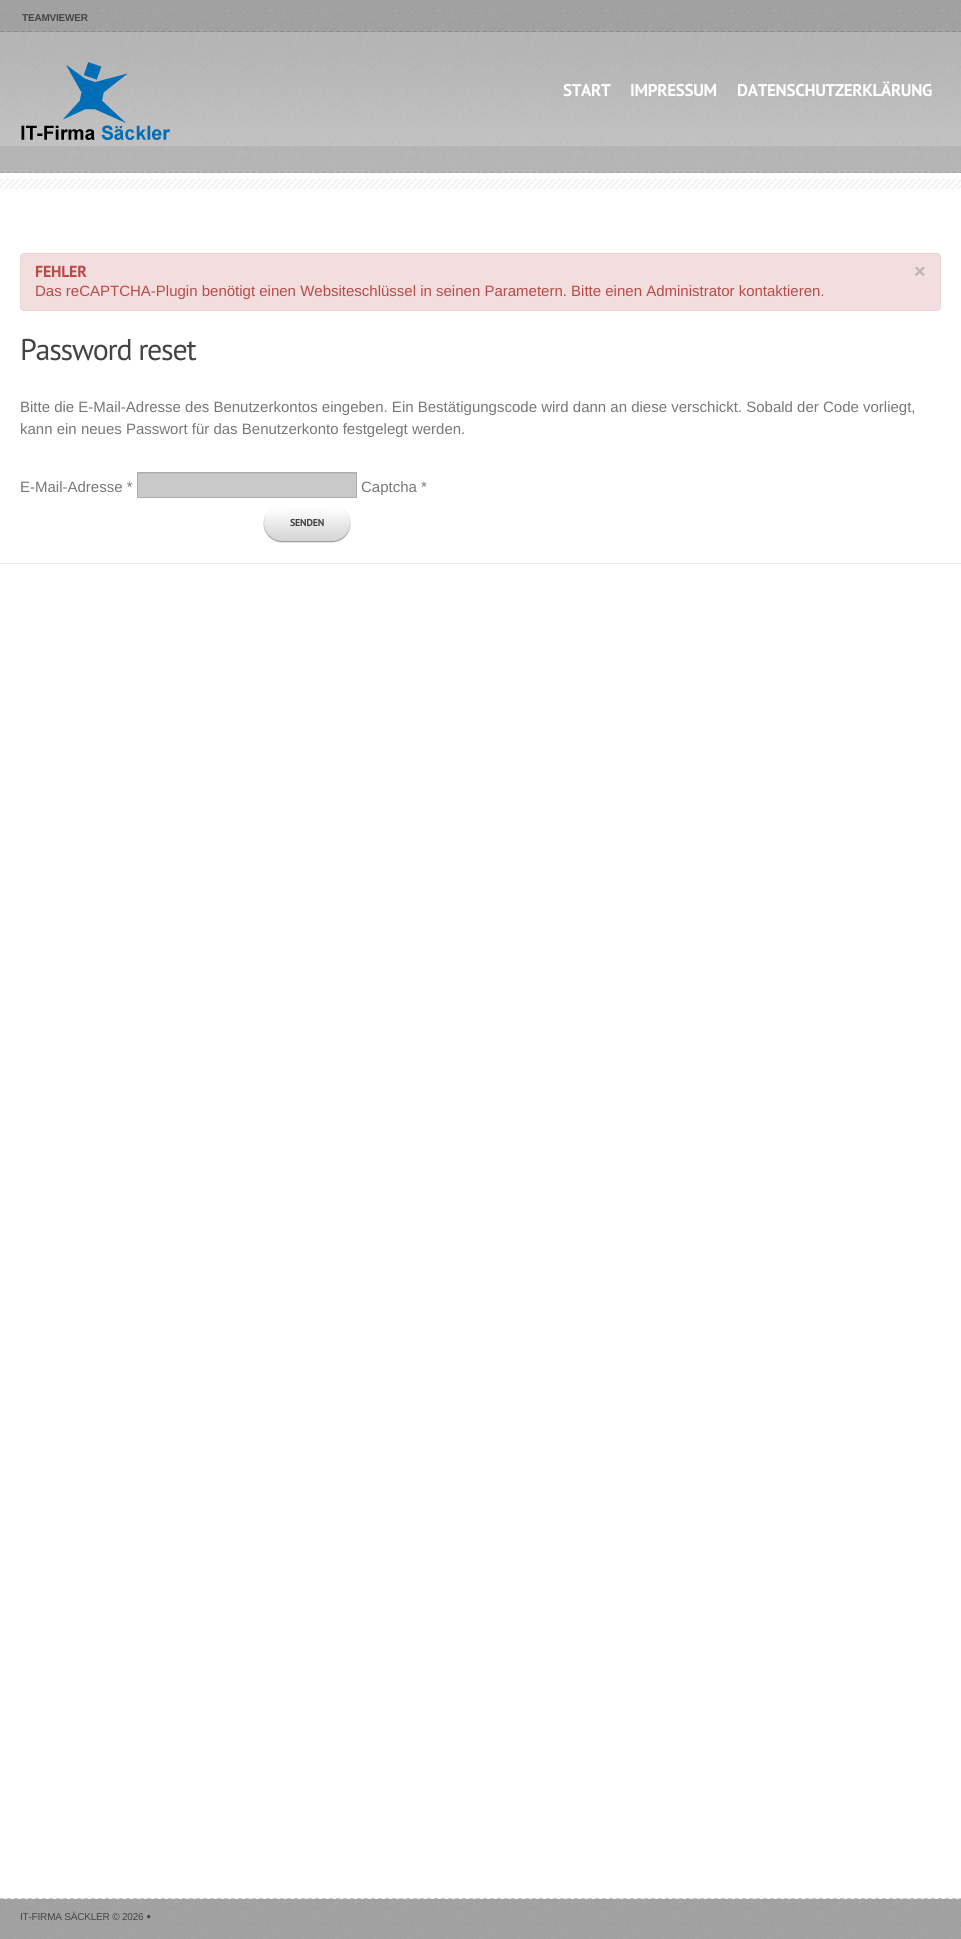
#include <cairo/cairo.h>
#include <math.h>
#include <stddef.h>


static void draw_spaced(cairo_t *cr, double x, double y, const char *s, double letter, double word) {
  cairo_move_to(cr, x, y);
  while (*s) {
    char ch[5] = {0};
    int n = 0;
    do ch[n++] = *s++; while ((*s & 0xC0) == 0x80);
    cairo_show_text(cr, ch);
    cairo_rel_move_to(cr, letter + word * (*ch == ' '), 0);
  }
}

static void rounded_rect(cairo_t *cr, double x, double y, double w, double h, double r) {
  cairo_new_sub_path(cr);
  cairo_arc(cr, x + w - r, y + h - r, r, 0, M_PI / 2);
  cairo_arc(cr, x + r, y + h - r, r, M_PI / 2, M_PI);
  cairo_arc(cr, x + r, y + r, r, M_PI, 1.5 * M_PI);
  cairo_arc(cr, x + w - r, y + r, r, 1.5 * M_PI, 2 * M_PI);
  cairo_close_path(cr);
}

static void draw_shadow(cairo_t *cr, double x, double y, double w, double h, double r, double blur, double alpha) {
  cairo_push_group_with_content(cr, CAIRO_CONTENT_ALPHA);
  cairo_set_operator(cr, CAIRO_OPERATOR_SOURCE);
  for (int i = 15; i >= -15 && fmin(w, h) + blur * i / 3 > 0; i -= 2) {
    double e = blur * i / 6;
    cairo_set_source_rgba(cr, 0, 0, 0, alpha * erfc((i - 1) / 8.5) / 2);
    rounded_rect(cr, x - e, y - e, w + 2 * e, h + 2 * e, fmax(0, fmin(r + e + blur * .6, fmin(w, h) / 2 + e)));
    cairo_fill(cr);
  }
  cairo_pattern_t *soft = cairo_pop_group(cr);
  cairo_mask(cr, soft);
  cairo_pattern_destroy(soft);
}

static void draw_image(cairo_t *cr, const char *path, double x, double y, double w, double h) {
  cairo_surface_t *image = cairo_image_surface_create_from_png(path);
  cairo_save(cr);
  cairo_set_source_surface(cr, image, x, y);
  cairo_rectangle(cr, x, y, w, h);
  cairo_fill(cr);
  cairo_restore(cr);
  cairo_surface_destroy(image);
}

static void draw(cairo_t *cr) {
  cairo_set_source_rgb(cr, 1, 1, 1);
  cairo_paint(cr);
  draw_image(cr, "images/1.png", 0, 0, 961, 32);
  draw_image(cr, "images/2.png", 0, 31, 961, 1);
  draw_image(cr, "images/3.png", 0, 32, 961, 141);
  draw_image(cr, "images/4.png", 21, 62, 149, 78);
  draw_image(cr, "images/5.png", 0, 172, 961, 1);
  cairo_set_source_rgb(cr, 235 / 255.0, 235 / 255.0, 235 / 255.0);
  cairo_rectangle(cr, 0, 563, 961, 1);
  cairo_fill(cr);
  draw_image(cr, "images/6.png", 0, 179, 961, 10);
  cairo_set_source_rgb(cr, 242 / 255.0, 222 / 255.0, 222 / 255.0);
  rounded_rect(cr, 20.5, 253.5, 920, 57, 3.5);
  cairo_fill_preserve(cr);
  cairo_set_source_rgb(cr, 238 / 255.0, 211 / 255.0, 215 / 255.0);
  cairo_set_line_width(cr, 1);
  cairo_stroke(cr);
  cairo_set_source_rgb(cr, 201 / 255.0, 201 / 255.0, 201 / 255.0);
  cairo_rectangle(cr, 138, 474, 218, 23);
  cairo_fill(cr);
  cairo_set_source_rgb(cr, 186 / 255.0, 186 / 255.0, 186 / 255.0);
  cairo_rectangle(cr, 138, 473, 218, 1);
  cairo_fill(cr);
  cairo_rectangle(cr, 137.5, 472.5, 219, 25);
  cairo_set_source_rgb(cr, 174 / 255.0, 174 / 255.0, 174 / 255.0);
  cairo_stroke(cr);
  cairo_set_source_rgb(cr, 0, 0, 0);
  draw_shadow(cr, 264, 506, 86, 36, 18, 0.5, 0.43);
  draw_image(cr, "images/7.png", 264, 505, 86, 36);
  draw_image(cr, "images/8.png", 0, 1899, 961, 40);
  draw_image(cr, "images/9.png", 0, 1898, 961, 1);
  draw_image(cr, "images/10.png", 147, 1914, 4, 5);
  cairo_select_font_face(cr, "Liberation Sans", CAIRO_FONT_SLANT_NORMAL, CAIRO_FONT_WEIGHT_BOLD);
  cairo_set_font_size(cr, 10);
  cairo_set_source_rgb(cr, 68 / 255.0, 68 / 255.0, 68 / 255.0);
  draw_spaced(cr, 22, 21, "TEAMVIEWER", -0.2, 0);
  cairo_select_font_face(cr, "PT Sans", CAIRO_FONT_SLANT_NORMAL, CAIRO_FONT_WEIGHT_BOLD);
  cairo_set_font_size(cr, 17);
  cairo_set_source_rgb(cr, 1, 1, 1);
  draw_spaced(cr, 563, 96, "START", -0.3, 0);
  draw_spaced(cr, 630, 96, "IMPRESSUM", -0.3, 0);
  draw_spaced(cr, 737, 96, "DATENSCHUTZERKLÄRUNG", -0.3, 0);
  cairo_set_font_size(cr, 16);
  cairo_set_source_rgb(cr, 185 / 255.0, 74 / 255.0, 72 / 255.0);
  draw_spaced(cr, 35, 277, "FEHLER", -0.25, 0);
  cairo_select_font_face(cr, "Liberation Sans", CAIRO_FONT_SLANT_NORMAL, CAIRO_FONT_WEIGHT_BOLD);
  cairo_set_font_size(cr, 20);
  cairo_set_source_rgb(cr, 194 / 255.0, 178 / 255.0, 178 / 255.0);
  cairo_move_to(cr, 914, 278);
  cairo_show_text(cr, "×");
  cairo_select_font_face(cr, "Liberation Sans", CAIRO_FONT_SLANT_NORMAL, CAIRO_FONT_WEIGHT_NORMAL);
  cairo_set_font_size(cr, 15);
  cairo_set_source_rgb(cr, 185 / 255.0, 74 / 255.0, 72 / 255.0);
  cairo_move_to(cr, 35, 296);
  cairo_show_text(cr, "Das reCAPTCHA-Plugin benötigt einen Websiteschlüssel in seinen Parametern. Bitte einen Administrator kontaktieren.");
  cairo_select_font_face(cr, "PT Sans", CAIRO_FONT_SLANT_NORMAL, CAIRO_FONT_WEIGHT_NORMAL);
  cairo_set_font_size(cr, 30);
  cairo_set_source_rgb(cr, 68 / 255.0, 68 / 255.0, 68 / 255.0);
  draw_spaced(cr, 20, 360, "Password reset", -1.25, 0);
  cairo_select_font_face(cr, "Liberation Sans", CAIRO_FONT_SLANT_NORMAL, CAIRO_FONT_WEIGHT_NORMAL);
  cairo_set_font_size(cr, 15);
  cairo_set_source_rgb(cr, 119 / 255.0, 119 / 255.0, 119 / 255.0);
  cairo_move_to(cr, 20, 412);
  cairo_show_text(cr, "Bitte die E-Mail-Adresse des Benutzerkontos eingeben. Ein Bestätigungscode wird dann an diese verschickt. Sobald der Code vorliegt,");
  cairo_move_to(cr, 20, 434);
  cairo_show_text(cr, "kann ein neues Passwort für das Benutzerkonto festgelegt werden.");
  cairo_move_to(cr, 20, 492);
  cairo_show_text(cr, "E-Mail-Adresse *");
  cairo_move_to(cr, 361, 492);
  cairo_show_text(cr, "Captcha *");
  cairo_select_font_face(cr, "PT Sans", CAIRO_FONT_SLANT_NORMAL, CAIRO_FONT_WEIGHT_BOLD);
  cairo_set_font_size(cr, 10);
  cairo_set_source_rgb(cr, 68 / 255.0, 68 / 255.0, 68 / 255.0);
  draw_spaced(cr, 290, 526, "SENDEN", -0.2, 0);
  cairo_select_font_face(cr, "Liberation Sans", CAIRO_FONT_SLANT_NORMAL, CAIRO_FONT_WEIGHT_NORMAL);
  draw_spaced(cr, 20, 1920, "IT-FIRMA SÄCKLER © 2026", -0.2, 0);
}

int main(void) {
  cairo_surface_t *surface = cairo_image_surface_create(CAIRO_FORMAT_RGB24, 961, 1939);
  cairo_t *cr = cairo_create(surface);
  cairo_font_options_t *options = cairo_font_options_create();
  cairo_font_options_set_hint_metrics(options, CAIRO_HINT_METRICS_OFF);
  cairo_font_options_set_hint_style(options, CAIRO_HINT_STYLE_NONE);
  cairo_set_font_options(cr, options);
  cairo_set_miter_limit(cr, 4);
  draw(cr);
  cairo_surface_write_to_png(surface, "out.png");
  cairo_font_options_destroy(options);
  cairo_destroy(cr);
  cairo_surface_destroy(surface);
  return 0;
}
